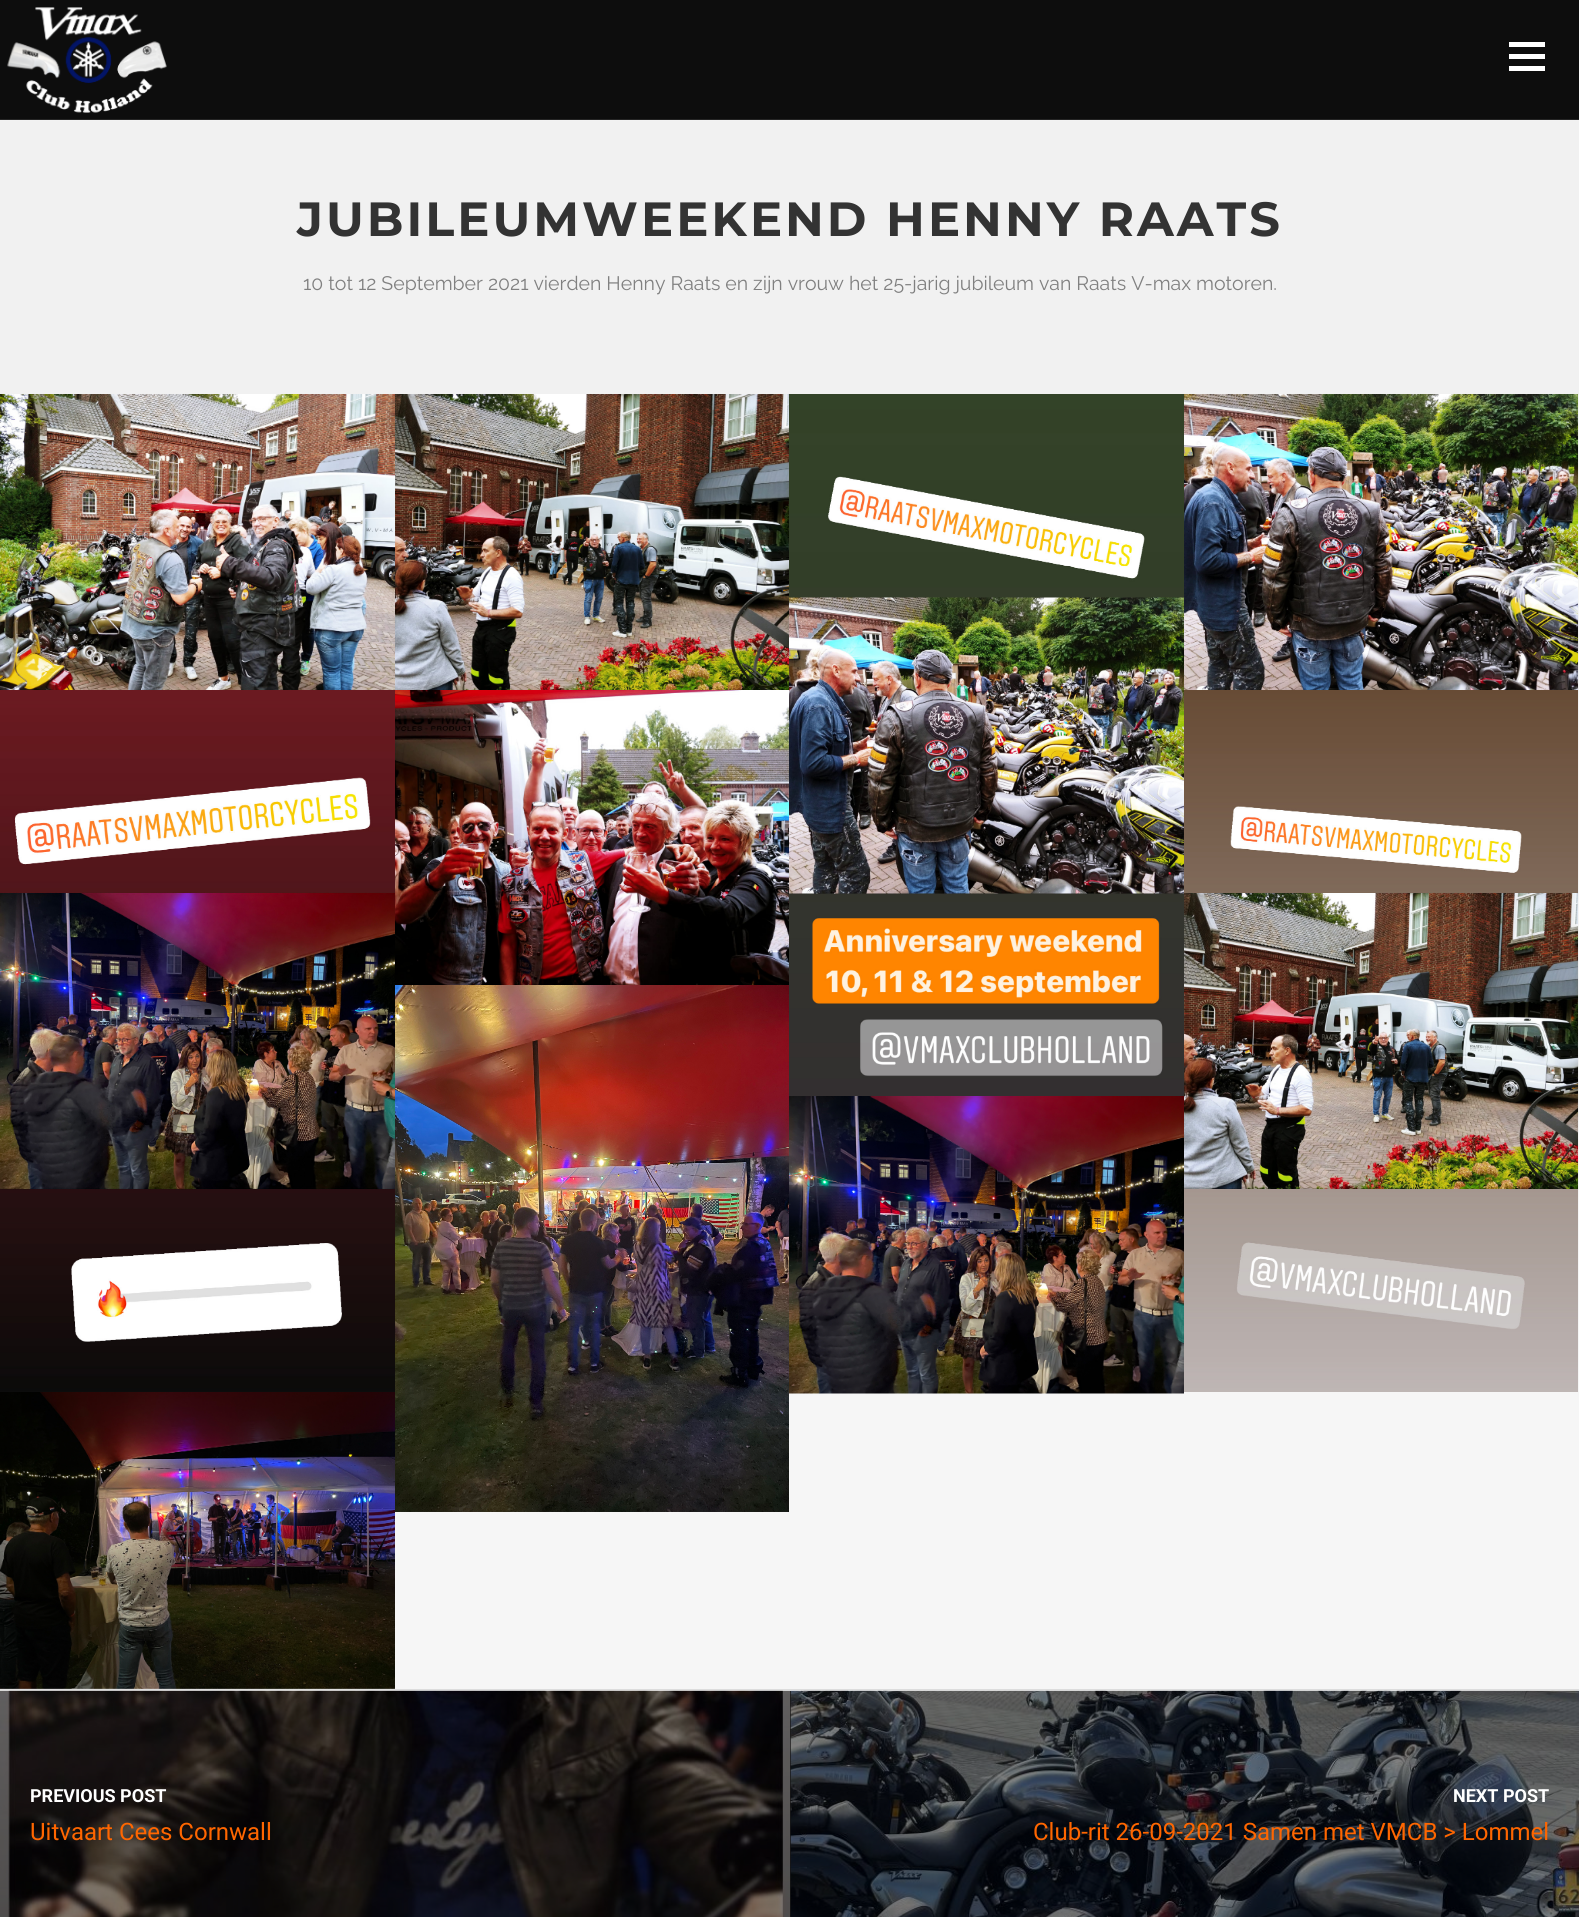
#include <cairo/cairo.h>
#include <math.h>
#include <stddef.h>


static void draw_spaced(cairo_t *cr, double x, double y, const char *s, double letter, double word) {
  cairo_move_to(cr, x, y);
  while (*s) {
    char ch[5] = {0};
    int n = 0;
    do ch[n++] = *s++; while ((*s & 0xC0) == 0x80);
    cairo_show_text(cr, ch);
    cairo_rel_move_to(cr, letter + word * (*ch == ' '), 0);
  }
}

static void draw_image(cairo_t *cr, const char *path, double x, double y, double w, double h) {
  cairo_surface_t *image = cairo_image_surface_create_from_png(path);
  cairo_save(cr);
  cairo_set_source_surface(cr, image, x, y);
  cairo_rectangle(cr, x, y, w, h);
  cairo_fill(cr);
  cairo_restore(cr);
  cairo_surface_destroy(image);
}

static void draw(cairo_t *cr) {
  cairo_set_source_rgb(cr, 246 / 255.0, 246 / 255.0, 246 / 255.0);
  cairo_paint(cr);
  cairo_set_source_rgb(cr, 13 / 255.0, 13 / 255.0, 13 / 255.0);
  cairo_rectangle(cr, 0, 0, 1579, 119);
  cairo_fill(cr);
  cairo_set_source_rgb(cr, 37 / 255.0, 37 / 255.0, 37 / 255.0);
  cairo_rectangle(cr, 0, 119, 1579, 1);
  cairo_fill(cr);
  draw_image(cr, "images/1.png", 7, 7, 160, 106);
  cairo_set_source_rgb(cr, 1, 1, 1);
  cairo_rectangle(cr, 1509, 42, 36, 5);
  cairo_fill(cr);
  cairo_rectangle(cr, 1509, 54, 36, 5);
  cairo_fill(cr);
  cairo_rectangle(cr, 1509, 66, 36, 5);
  cairo_fill(cr);
  cairo_set_source_rgb(cr, 241 / 255.0, 241 / 255.0, 241 / 255.0);
  cairo_rectangle(cr, 0, 121, 1579, 274);
  cairo_fill(cr);
  cairo_set_source_rgb(cr, 242 / 255.0, 242 / 255.0, 242 / 255.0);
  cairo_rectangle(cr, 0, 120, 1579, 1);
  cairo_fill(cr);
  draw_image(cr, "images/2.png", 0, 394, 395, 296);
  draw_image(cr, "images/3.png", 395, 394, 394, 296);
  draw_image(cr, "images/4.png", 789, 394, 395, 702);
  draw_image(cr, "images/5.png", 1184, 394, 394, 296);
  draw_image(cr, "images/6.png", 0, 690, 395, 702);
  draw_image(cr, "images/7.png", 395, 690, 394, 295);
  draw_image(cr, "images/8.png", 1184, 690, 394, 702);
  draw_image(cr, "images/9.png", 395, 985, 394, 527);
  draw_image(cr, "images/10.png", 789, 1096, 395, 298);
  draw_image(cr, "images/11.png", 0, 1392, 395, 297);
  cairo_set_source_rgb(cr, 221 / 255.0, 221 / 255.0, 221 / 255.0);
  cairo_rectangle(cr, 0, 1689, 1579, 2);
  cairo_fill(cr);
  cairo_set_source_rgb(cr, 0, 0, 0);
  cairo_rectangle(cr, 0, 1691, 1579, 226);
  cairo_fill(cr);
  draw_image(cr, "images/12.png", 0, 1690, 791, 227);
  draw_image(cr, "images/13.png", 790, 1690, 789, 227);
  cairo_select_font_face(cr, "Montserrat", CAIRO_FONT_SLANT_NORMAL, CAIRO_FONT_WEIGHT_BOLD);
  cairo_set_font_size(cr, 48);
  cairo_set_source_rgb(cr, 51 / 255.0, 51 / 255.0, 51 / 255.0);
  draw_spaced(cr, 297, 236, "JUBILEUMWEEKEND HENNY RAATS", 3, 0);
  cairo_select_font_face(cr, "Raleway", CAIRO_FONT_SLANT_NORMAL, CAIRO_FONT_WEIGHT_NORMAL);
  cairo_set_font_size(cr, 19.5);
  cairo_set_source_rgb(cr, 128 / 255.0, 128 / 255.0, 128 / 255.0);
  cairo_move_to(cr, 303, 290);
  cairo_show_text(cr, "10 tot 12 September 2021 vierden Henny Raats en zijn vrouw het 25-jarig jubileum van Raats V-max motoren.");
  cairo_select_font_face(cr, "Roboto", CAIRO_FONT_SLANT_NORMAL, CAIRO_FONT_WEIGHT_BOLD);
  cairo_set_font_size(cr, 18);
  cairo_set_source_rgb(cr, 1, 1, 1);
  cairo_move_to(cr, 30, 1802);
  cairo_show_text(cr, "PREVIOUS POST");
  cairo_select_font_face(cr, "Roboto", CAIRO_FONT_SLANT_NORMAL, CAIRO_FONT_WEIGHT_NORMAL);
  cairo_set_font_size(cr, 24);
  cairo_set_source_rgb(cr, 1, 102 / 255.0, 0);
  cairo_move_to(cr, 30, 1840);
  cairo_show_text(cr, "Uitvaart Cees Cornwall");
  cairo_select_font_face(cr, "Roboto", CAIRO_FONT_SLANT_NORMAL, CAIRO_FONT_WEIGHT_BOLD);
  cairo_set_font_size(cr, 18);
  cairo_set_source_rgb(cr, 1, 1, 1);
  cairo_move_to(cr, 1453, 1802);
  cairo_show_text(cr, "NEXT POST");
  cairo_select_font_face(cr, "Roboto", CAIRO_FONT_SLANT_NORMAL, CAIRO_FONT_WEIGHT_NORMAL);
  cairo_set_font_size(cr, 24);
  cairo_set_source_rgb(cr, 1, 102 / 255.0, 0);
  cairo_move_to(cr, 1033, 1840);
  cairo_show_text(cr, "Club-rit 26-09-2021 Samen met VMCB > Lommel");
}

int main(void) {
  cairo_surface_t *surface = cairo_image_surface_create(CAIRO_FORMAT_RGB24, 1579, 1917);
  cairo_t *cr = cairo_create(surface);
  cairo_font_options_t *options = cairo_font_options_create();
  cairo_font_options_set_hint_metrics(options, CAIRO_HINT_METRICS_OFF);
  cairo_font_options_set_hint_style(options, CAIRO_HINT_STYLE_NONE);
  cairo_set_font_options(cr, options);
  cairo_set_miter_limit(cr, 4);
  draw(cr);
  cairo_surface_write_to_png(surface, "out.png");
  cairo_font_options_destroy(options);
  cairo_destroy(cr);
  cairo_surface_destroy(surface);
  return 0;
}
